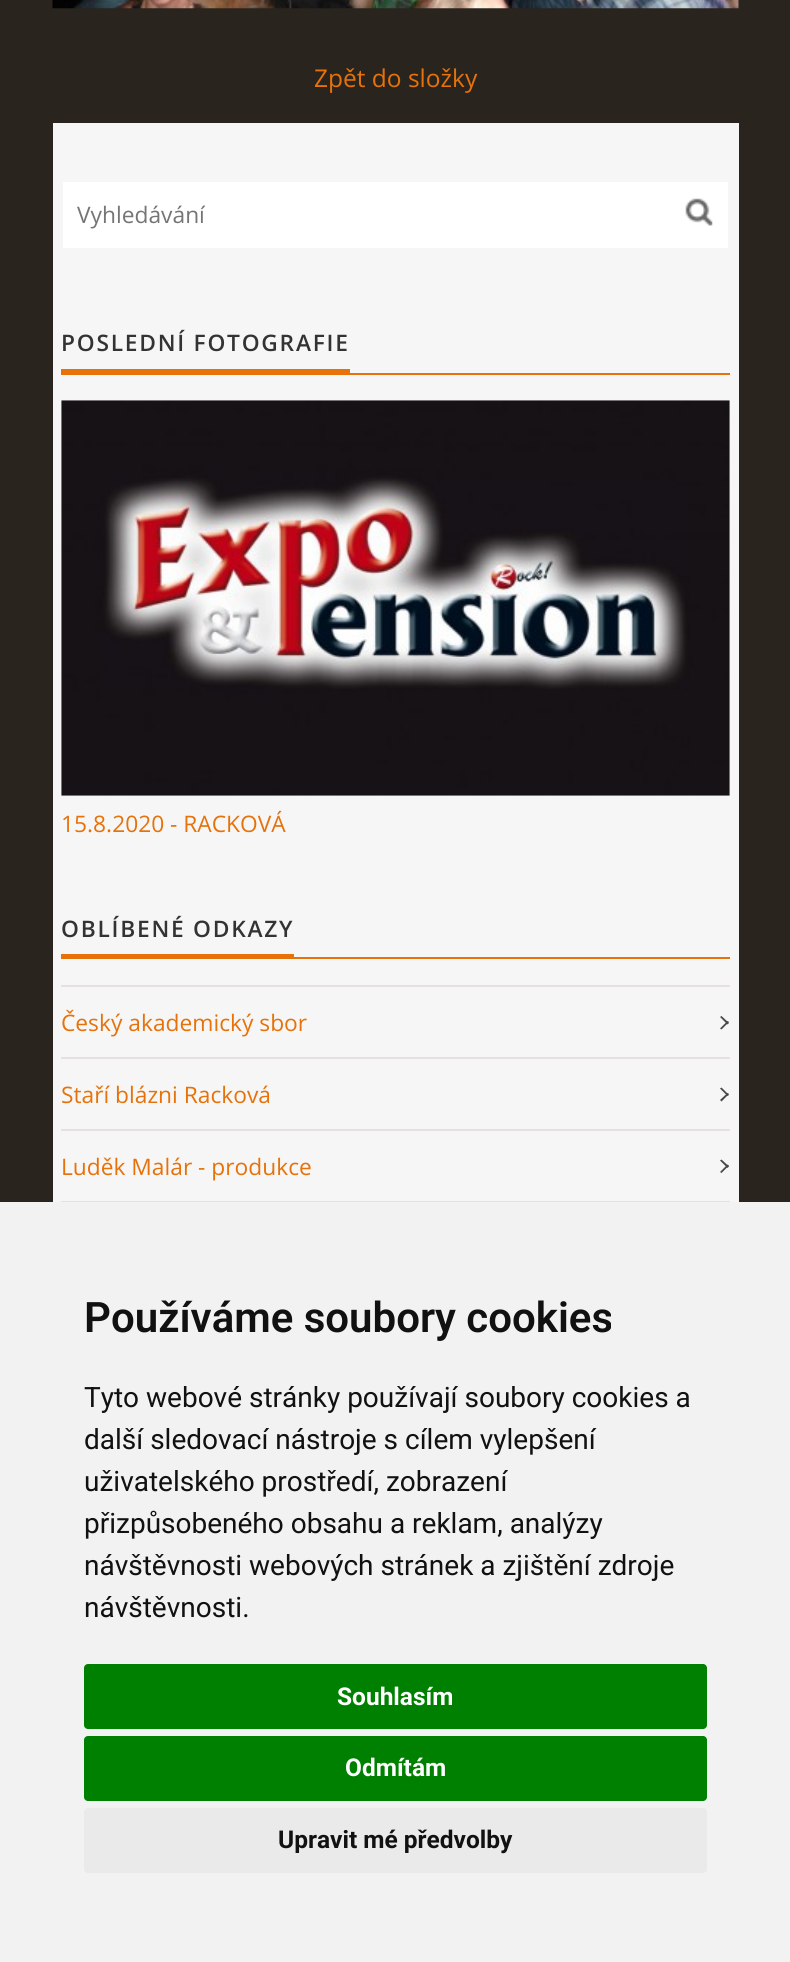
#include <cairo/cairo.h>
#include <math.h>
#include <stddef.h>


static void draw_spaced(cairo_t *cr, double x, double y, const char *s, double letter, double word) {
  cairo_move_to(cr, x, y);
  while (*s) {
    char ch[5] = {0};
    int n = 0;
    do ch[n++] = *s++; while ((*s & 0xC0) == 0x80);
    cairo_show_text(cr, ch);
    cairo_rel_move_to(cr, letter + word * (*ch == ' '), 0);
  }
}

static void rounded_rect(cairo_t *cr, double x, double y, double w, double h, double r) {
  cairo_new_sub_path(cr);
  cairo_arc(cr, x + w - r, y + h - r, r, 0, M_PI / 2);
  cairo_arc(cr, x + r, y + h - r, r, M_PI / 2, M_PI);
  cairo_arc(cr, x + r, y + r, r, M_PI, 1.5 * M_PI);
  cairo_arc(cr, x + w - r, y + r, r, 1.5 * M_PI, 2 * M_PI);
  cairo_close_path(cr);
}

static void draw_image(cairo_t *cr, const char *path, double x, double y, double w, double h) {
  cairo_surface_t *image = cairo_image_surface_create_from_png(path);
  cairo_save(cr);
  cairo_set_source_surface(cr, image, x, y);
  cairo_rectangle(cr, x, y, w, h);
  cairo_fill(cr);
  cairo_restore(cr);
  cairo_surface_destroy(image);
}

static void draw(cairo_t *cr) {
  cairo_set_source_rgb(cr, 41 / 255.0, 36 / 255.0, 30 / 255.0);
  cairo_paint(cr);
  draw_image(cr, "images/1.png", 52, 0, 687, 9);
  cairo_set_source_rgb(cr, 246 / 255.0, 246 / 255.0, 246 / 255.0);
  cairo_rectangle(cr, 53, 123, 686, 1079);
  cairo_fill(cr);
  cairo_set_source_rgb(cr, 1, 1, 1);
  cairo_rectangle(cr, 63, 182, 665, 66);
  cairo_fill(cr);
  draw_image(cr, "images/2.png", 685, 198, 28, 28);
  cairo_set_source_rgb(cr, 230 / 255.0, 114 / 255.0, 9 / 255.0);
  cairo_rectangle(cr, 61, 369, 289, 4);
  cairo_fill(cr);
  cairo_rectangle(cr, 61, 373, 669, 2);
  cairo_fill(cr);
  draw_image(cr, "images/3.png", 61, 400, 669, 396);
  cairo_rectangle(cr, 61, 954, 233, 3);
  cairo_fill(cr);
  cairo_rectangle(cr, 61, 957, 669, 2);
  cairo_fill(cr);
  cairo_set_source_rgb(cr, 232 / 255.0, 223 / 255.0, 223 / 255.0);
  cairo_rectangle(cr, 61, 985, 669, 2);
  cairo_fill(cr);
  cairo_rectangle(cr, 61, 1057, 669, 2);
  cairo_fill(cr);
  cairo_set_source_rgb(cr, 72 / 255.0, 72 / 255.0, 72 / 255.0);
  cairo_new_path(cr);
  cairo_move_to(cr, 721.5, 1016);
  cairo_line_to(cr, 729, 1023);
  cairo_line_to(cr, 727.5, 1024.5);
  cairo_line_to(cr, 720, 1017);
  cairo_close_path(cr);
  cairo_fill(cr);
  cairo_new_path(cr);
  cairo_move_to(cr, 720, 1028.5);
  cairo_line_to(cr, 727.5, 1021);
  cairo_line_to(cr, 729, 1022);
  cairo_line_to(cr, 721.5, 1029.5);
  cairo_close_path(cr);
  cairo_fill(cr);
  cairo_set_source_rgb(cr, 232 / 255.0, 223 / 255.0, 223 / 255.0);
  cairo_rectangle(cr, 61, 1129, 669, 2);
  cairo_fill(cr);
  cairo_set_source_rgb(cr, 72 / 255.0, 72 / 255.0, 72 / 255.0);
  cairo_new_path(cr);
  cairo_move_to(cr, 721.5, 1087.5);
  cairo_line_to(cr, 729, 1095);
  cairo_line_to(cr, 727.5, 1096);
  cairo_line_to(cr, 720, 1088.5);
  cairo_close_path(cr);
  cairo_fill(cr);
  cairo_new_path(cr);
  cairo_move_to(cr, 720, 1100);
  cairo_line_to(cr, 727.5, 1093);
  cairo_line_to(cr, 729, 1094);
  cairo_line_to(cr, 721.5, 1101.5);
  cairo_close_path(cr);
  cairo_fill(cr);
  cairo_set_source_rgb(cr, 232 / 255.0, 223 / 255.0, 223 / 255.0);
  cairo_rectangle(cr, 61, 1201, 669, 1);
  cairo_fill(cr);
  cairo_set_source_rgb(cr, 72 / 255.0, 72 / 255.0, 72 / 255.0);
  cairo_new_path(cr);
  cairo_move_to(cr, 721.5, 1159.5);
  cairo_line_to(cr, 729, 1166.5);
  cairo_line_to(cr, 727.5, 1168);
  cairo_line_to(cr, 720, 1160.5);
  cairo_close_path(cr);
  cairo_fill(cr);
  cairo_new_path(cr);
  cairo_move_to(cr, 720, 1172);
  cairo_line_to(cr, 727.5, 1164.5);
  cairo_line_to(cr, 729, 1165.5);
  cairo_line_to(cr, 721.5, 1173);
  cairo_close_path(cr);
  cairo_fill(cr);
  cairo_set_source_rgb(cr, 242 / 255.0, 242 / 255.0, 242 / 255.0);
  cairo_rectangle(cr, 0, 1202, 790, 760);
  cairo_fill(cr);
  cairo_set_source_rgb(cr, 0, 128 / 255.0, 0);
  rounded_rect(cr, 84, 1664, 623, 65, 4);
  cairo_fill(cr);
  rounded_rect(cr, 84, 1736, 623, 65, 4);
  cairo_fill(cr);
  cairo_set_source_rgb(cr, 234 / 255.0, 234 / 255.0, 234 / 255.0);
  rounded_rect(cr, 84, 1808, 623, 65, 4);
  cairo_fill(cr);
  cairo_select_font_face(cr, "Open Sans", CAIRO_FONT_SLANT_NORMAL, CAIRO_FONT_WEIGHT_NORMAL);
  cairo_set_font_size(cr, 24.5);
  cairo_set_source_rgb(cr, 230 / 255.0, 114 / 255.0, 9 / 255.0);
  cairo_move_to(cr, 314, 87);
  cairo_show_text(cr, "Zpět do složky");
  cairo_set_font_size(cr, 22.75);
  cairo_set_source_rgb(cr, 117 / 255.0, 117 / 255.0, 117 / 255.0);
  cairo_move_to(cr, 77, 223);
  cairo_show_text(cr, "Vyhledávání");
  cairo_select_font_face(cr, "Open Sans SemiBold", CAIRO_FONT_SLANT_NORMAL, CAIRO_FONT_WEIGHT_NORMAL);
  cairo_set_source_rgb(cr, 51 / 255.0, 51 / 255.0, 51 / 255.0);
  draw_spaced(cr, 61, 351, "POSLEDNÍ FOTOGRAFIE", 1.75, 0);
  cairo_select_font_face(cr, "Open Sans", CAIRO_FONT_SLANT_NORMAL, CAIRO_FONT_WEIGHT_NORMAL);
  cairo_set_source_rgb(cr, 230 / 255.0, 114 / 255.0, 9 / 255.0);
  cairo_move_to(cr, 61, 832);
  cairo_show_text(cr, "15.8.2020 - RACKOVÁ");
  cairo_select_font_face(cr, "Open Sans SemiBold", CAIRO_FONT_SLANT_NORMAL, CAIRO_FONT_WEIGHT_NORMAL);
  cairo_set_source_rgb(cr, 51 / 255.0, 51 / 255.0, 51 / 255.0);
  draw_spaced(cr, 61, 937, "OBLÍBENÉ ODKAZY", 1.75, 0);
  cairo_select_font_face(cr, "Open Sans", CAIRO_FONT_SLANT_NORMAL, CAIRO_FONT_WEIGHT_NORMAL);
  cairo_set_source_rgb(cr, 230 / 255.0, 114 / 255.0, 9 / 255.0);
  cairo_move_to(cr, 61, 1031);
  cairo_show_text(cr, "Český akademický sbor");
  cairo_move_to(cr, 61, 1103);
  cairo_show_text(cr, "Staří blázni Racková");
  cairo_move_to(cr, 61, 1175);
  cairo_show_text(cr, "Luděk Malár - produkce");
  cairo_select_font_face(cr, "Roboto SemiBold", CAIRO_FONT_SLANT_NORMAL, CAIRO_FONT_WEIGHT_NORMAL);
  cairo_set_font_size(cr, 42);
  cairo_set_source_rgb(cr, 17 / 255.0, 17 / 255.0, 17 / 255.0);
  cairo_move_to(cr, 84, 1332);
  cairo_show_text(cr, "Používáme soubory cookies");
  cairo_select_font_face(cr, "Roboto", CAIRO_FONT_SLANT_NORMAL, CAIRO_FONT_WEIGHT_NORMAL);
  cairo_set_font_size(cr, 28);
  cairo_move_to(cr, 84, 1407);
  cairo_show_text(cr, "Tyto webové stránky používají soubory cookies a");
  cairo_move_to(cr, 84, 1449);
  cairo_show_text(cr, "další sledovací nástroje s cílem vylepšení");
  cairo_move_to(cr, 84, 1491);
  cairo_show_text(cr, "uživatelského prostředí, zobrazení");
  cairo_move_to(cr, 84, 1533);
  cairo_show_text(cr, "přizpůsobeného obsahu a reklam, analýzy");
  cairo_move_to(cr, 84, 1575);
  cairo_show_text(cr, "návštěvnosti webových stránek a zjištění zdroje");
  cairo_move_to(cr, 84, 1617);
  cairo_show_text(cr, "návštěvnosti.");
  cairo_select_font_face(cr, "Roboto", CAIRO_FONT_SLANT_NORMAL, CAIRO_FONT_WEIGHT_BOLD);
  cairo_set_font_size(cr, 24.5);
  cairo_set_source_rgb(cr, 1, 1, 1);
  cairo_move_to(cr, 337, 1705);
  cairo_show_text(cr, "Souhlasím");
  cairo_move_to(cr, 345, 1776);
  cairo_show_text(cr, "Odmítám");
  cairo_set_source_rgb(cr, 17 / 255.0, 17 / 255.0, 17 / 255.0);
  cairo_move_to(cr, 278, 1848);
  cairo_show_text(cr, "Upravit mé předvolby");
}

int main(void) {
  cairo_surface_t *surface = cairo_image_surface_create(CAIRO_FORMAT_RGB24, 790, 1962);
  cairo_t *cr = cairo_create(surface);
  cairo_font_options_t *options = cairo_font_options_create();
  cairo_font_options_set_hint_metrics(options, CAIRO_HINT_METRICS_OFF);
  cairo_font_options_set_hint_style(options, CAIRO_HINT_STYLE_NONE);
  cairo_set_font_options(cr, options);
  cairo_set_miter_limit(cr, 4);
  draw(cr);
  cairo_surface_write_to_png(surface, "out.png");
  cairo_font_options_destroy(options);
  cairo_destroy(cr);
  cairo_surface_destroy(surface);
  return 0;
}
